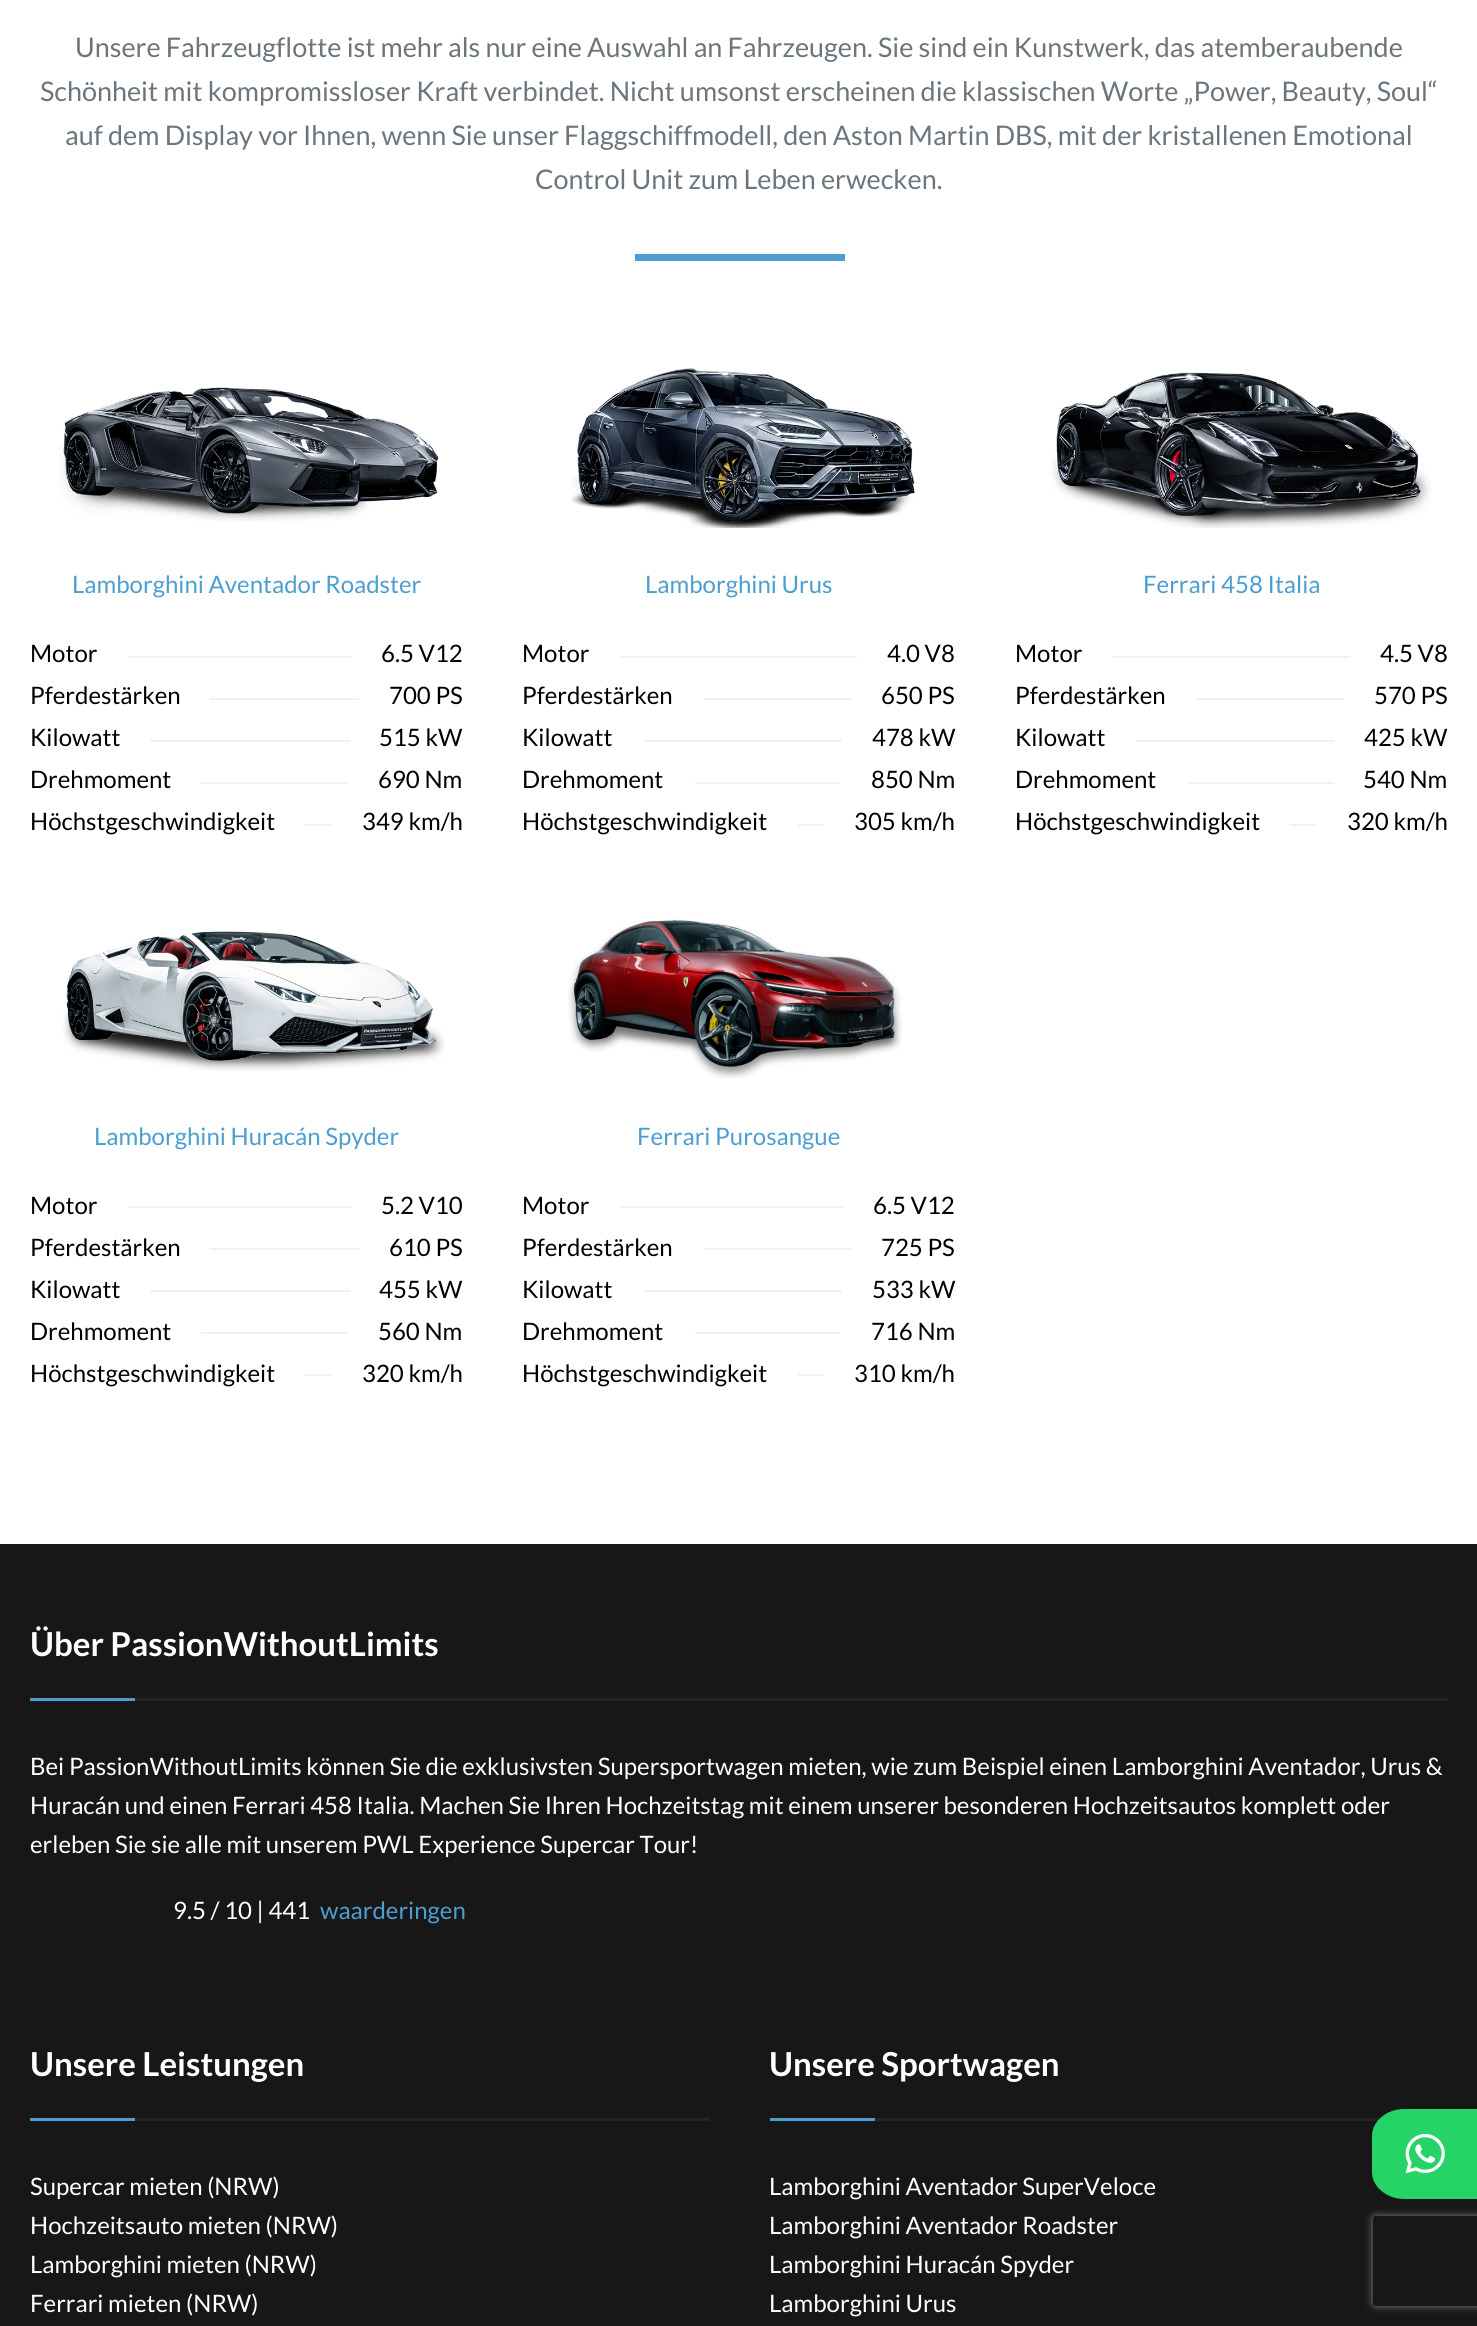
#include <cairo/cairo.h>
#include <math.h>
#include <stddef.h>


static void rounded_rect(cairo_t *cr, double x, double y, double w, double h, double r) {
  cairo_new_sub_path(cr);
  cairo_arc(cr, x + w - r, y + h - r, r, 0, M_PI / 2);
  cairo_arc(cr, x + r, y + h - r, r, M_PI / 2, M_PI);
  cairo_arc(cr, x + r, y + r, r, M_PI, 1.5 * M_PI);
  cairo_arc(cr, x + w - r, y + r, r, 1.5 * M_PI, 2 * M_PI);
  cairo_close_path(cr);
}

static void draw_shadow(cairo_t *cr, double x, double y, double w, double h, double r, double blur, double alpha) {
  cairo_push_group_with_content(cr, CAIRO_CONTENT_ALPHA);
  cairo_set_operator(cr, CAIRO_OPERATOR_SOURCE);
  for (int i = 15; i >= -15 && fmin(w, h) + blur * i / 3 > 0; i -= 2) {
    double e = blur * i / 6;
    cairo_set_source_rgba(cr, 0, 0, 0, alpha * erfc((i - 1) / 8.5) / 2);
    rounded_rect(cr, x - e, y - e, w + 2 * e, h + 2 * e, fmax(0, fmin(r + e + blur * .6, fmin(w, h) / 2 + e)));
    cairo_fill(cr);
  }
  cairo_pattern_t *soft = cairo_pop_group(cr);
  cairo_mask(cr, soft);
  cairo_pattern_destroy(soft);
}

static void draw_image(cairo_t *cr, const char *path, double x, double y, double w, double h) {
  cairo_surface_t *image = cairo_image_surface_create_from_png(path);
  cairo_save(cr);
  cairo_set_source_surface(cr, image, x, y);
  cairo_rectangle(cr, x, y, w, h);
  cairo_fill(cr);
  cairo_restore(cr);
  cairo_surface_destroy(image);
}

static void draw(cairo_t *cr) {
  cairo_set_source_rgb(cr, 1, 1, 1);
  cairo_paint(cr);
  cairo_set_source_rgb(cr, 77 / 255.0, 158 / 255.0, 208 / 255.0);
  cairo_rectangle(cr, 635, 254, 210, 7);
  cairo_fill(cr);
  draw_image(cr, "images/1.png", 59, 387, 380, 135);
  cairo_set_source_rgb(cr, 241 / 255.0, 241 / 255.0, 241 / 255.0);
  cairo_rectangle(cr, 128, 656, 223, 2);
  cairo_fill(cr);
  cairo_rectangle(cr, 210, 698, 149, 2);
  cairo_fill(cr);
  cairo_rectangle(cr, 150, 740, 200, 2);
  cairo_fill(cr);
  cairo_rectangle(cr, 201, 782, 147, 2);
  cairo_fill(cr);
  cairo_rectangle(cr, 305, 824, 27, 2);
  cairo_fill(cr);
  draw_image(cr, "images/2.png", 570, 368, 345, 160);
  cairo_rectangle(cr, 620, 656, 237, 2);
  cairo_fill(cr);
  cairo_rectangle(cr, 704, 698, 147, 2);
  cairo_fill(cr);
  cairo_rectangle(cr, 644, 740, 198, 2);
  cairo_fill(cr);
  cairo_rectangle(cr, 695, 782, 145, 2);
  cairo_fill(cr);
  cairo_rectangle(cr, 798, 824, 26, 2);
  cairo_fill(cr);
  draw_image(cr, "images/3.png", 1051, 372, 380, 156);
  cairo_rectangle(cr, 1113, 656, 237, 2);
  cairo_fill(cr);
  cairo_rectangle(cr, 1196, 698, 148, 2);
  cairo_fill(cr);
  cairo_rectangle(cr, 1136, 740, 198, 2);
  cairo_fill(cr);
  cairo_rectangle(cr, 1187, 782, 147, 2);
  cairo_fill(cr);
  cairo_rectangle(cr, 1290, 824, 27, 2);
  cairo_fill(cr);
  draw_image(cr, "images/4.png", 63, 930, 382, 141);
  cairo_rectangle(cr, 128, 1206, 223, 2);
  cairo_fill(cr);
  cairo_rectangle(cr, 210, 1248, 149, 2);
  cairo_fill(cr);
  cairo_rectangle(cr, 150, 1290, 200, 2);
  cairo_fill(cr);
  cairo_rectangle(cr, 201, 1332, 147, 2);
  cairo_fill(cr);
  cairo_rectangle(cr, 305, 1374, 27, 2);
  cairo_fill(cr);
  draw_image(cr, "images/5.png", 568, 919, 334, 159);
  cairo_rectangle(cr, 620, 1206, 223, 2);
  cairo_fill(cr);
  cairo_rectangle(cr, 704, 1248, 147, 2);
  cairo_fill(cr);
  cairo_rectangle(cr, 644, 1290, 198, 2);
  cairo_fill(cr);
  cairo_rectangle(cr, 695, 1332, 145, 2);
  cairo_fill(cr);
  cairo_rectangle(cr, 798, 1374, 26, 2);
  cairo_fill(cr);
  cairo_set_source_rgb(cr, 23 / 255.0, 23 / 255.0, 23 / 255.0);
  cairo_rectangle(cr, 0, 1544, 1477, 782);
  cairo_fill(cr);
  cairo_set_source_rgb(cr, 77 / 255.0, 158 / 255.0, 208 / 255.0);
  cairo_rectangle(cr, 30, 1698, 105, 3);
  cairo_fill(cr);
  cairo_set_source_rgb(cr, 35 / 255.0, 35 / 255.0, 35 / 255.0);
  cairo_rectangle(cr, 135, 1698, 1313, 3);
  cairo_fill(cr);
  cairo_set_source_rgb(cr, 77 / 255.0, 158 / 255.0, 208 / 255.0);
  cairo_rectangle(cr, 30, 2118, 105, 3);
  cairo_fill(cr);
  cairo_set_source_rgb(cr, 35 / 255.0, 35 / 255.0, 35 / 255.0);
  cairo_rectangle(cr, 135, 2118, 575, 3);
  cairo_fill(cr);
  cairo_set_source_rgb(cr, 77 / 255.0, 158 / 255.0, 208 / 255.0);
  cairo_rectangle(cr, 770, 2118, 105, 3);
  cairo_fill(cr);
  cairo_set_source_rgb(cr, 35 / 255.0, 35 / 255.0, 35 / 255.0);
  cairo_rectangle(cr, 875, 2118, 506, 3);
  cairo_fill(cr);
  cairo_set_source_rgb(cr, 37 / 255.0, 211 / 255.0, 102 / 255.0);
  cairo_new_path(cr);
  cairo_move_to(cr, 1404, 2109);
  cairo_line_to(cr, 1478, 2109);
  cairo_line_to(cr, 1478, 2199);
  cairo_line_to(cr, 1404, 2199);
  cairo_curve_to(cr, 1387, 2199, 1372, 2187, 1372, 2172);
  cairo_line_to(cr, 1372, 2136);
  cairo_curve_to(cr, 1372, 2121, 1387, 2109, 1404, 2109);
  cairo_close_path(cr);
  cairo_fill(cr);
  draw_image(cr, "images/6.png", 1405, 2133, 40, 41);
  cairo_save(cr);
  cairo_set_fill_rule(cr, CAIRO_FILL_RULE_EVEN_ODD);
  cairo_new_path(cr);
  cairo_move_to(cr, 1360, 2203);
  cairo_line_to(cr, 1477, 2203);
  cairo_line_to(cr, 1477, 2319);
  cairo_line_to(cr, 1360, 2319);
  cairo_close_path(cr);
  cairo_move_to(cr, 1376, 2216);
  cairo_line_to(cr, 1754, 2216);
  cairo_curve_to(cr, 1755.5, 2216, 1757, 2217.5, 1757, 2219);
  cairo_line_to(cr, 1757, 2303);
  cairo_curve_to(cr, 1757, 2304.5, 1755.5, 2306, 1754, 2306);
  cairo_line_to(cr, 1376, 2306);
  cairo_curve_to(cr, 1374.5, 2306, 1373, 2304.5, 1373, 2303);
  cairo_line_to(cr, 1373, 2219);
  cairo_curve_to(cr, 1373, 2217.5, 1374.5, 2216, 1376, 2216);
  cairo_close_path(cr);
  cairo_clip(cr);
  cairo_set_source_rgb(cr, 128 / 255.0, 128 / 255.0, 128 / 255.0);
  draw_shadow(cr, 1373, 2216, 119, 90, 3, 4, 1);
  cairo_restore(cr);
  cairo_select_font_face(cr, "Lato", CAIRO_FONT_SLANT_NORMAL, CAIRO_FONT_WEIGHT_NORMAL);
  cairo_set_font_size(cr, 27);
  cairo_set_source_rgb(cr, 108 / 255.0, 117 / 255.0, 125 / 255.0);
  cairo_move_to(cr, 75, 57);
  cairo_show_text(cr, "Unsere Fahrzeugflotte ist mehr als nur eine Auswahl an Fahrzeugen. Sie sind ein Kunstwerk, das atemberaubende");
  cairo_move_to(cr, 40, 101);
  cairo_show_text(cr, "Schönheit mit kompromissloser Kraft verbindet. Nicht umsonst erscheinen die klassischen Worte „Power, Beauty, Soul“");
  cairo_move_to(cr, 65, 145);
  cairo_show_text(cr, "auf dem Display vor Ihnen, wenn Sie unser Flaggschiffmodell, den Aston Martin DBS, mit der kristallenen Emotional");
  cairo_move_to(cr, 535, 189);
  cairo_show_text(cr, "Control Unit zum Leben erwecken.");
  cairo_set_font_size(cr, 24);
  cairo_set_source_rgb(cr, 77 / 255.0, 158 / 255.0, 208 / 255.0);
  cairo_move_to(cr, 72, 593);
  cairo_show_text(cr, "Lamborghini Aventador Roadster");
  cairo_set_source_rgb(cr, 0, 0, 0);
  cairo_move_to(cr, 30, 662);
  cairo_show_text(cr, "Motor");
  cairo_move_to(cr, 381, 662);
  cairo_show_text(cr, "6.5 V12");
  cairo_move_to(cr, 30, 704);
  cairo_show_text(cr, "Pferdestärken");
  cairo_move_to(cr, 389, 704);
  cairo_show_text(cr, "700 PS");
  cairo_move_to(cr, 30, 746);
  cairo_show_text(cr, "Kilowatt");
  cairo_move_to(cr, 379, 746);
  cairo_show_text(cr, "515 kW");
  cairo_move_to(cr, 30, 788);
  cairo_show_text(cr, "Drehmoment");
  cairo_move_to(cr, 378, 788);
  cairo_show_text(cr, "690 Nm");
  cairo_move_to(cr, 30, 830);
  cairo_show_text(cr, "Höchstgeschwindigkeit");
  cairo_move_to(cr, 362, 830);
  cairo_show_text(cr, "349 km/h");
  cairo_set_source_rgb(cr, 77 / 255.0, 158 / 255.0, 208 / 255.0);
  cairo_move_to(cr, 645, 593);
  cairo_show_text(cr, "Lamborghini Urus");
  cairo_set_source_rgb(cr, 0, 0, 0);
  cairo_move_to(cr, 522, 662);
  cairo_show_text(cr, "Motor");
  cairo_move_to(cr, 887, 662);
  cairo_show_text(cr, "4.0 V8");
  cairo_move_to(cr, 522, 704);
  cairo_show_text(cr, "Pferdestärken");
  cairo_move_to(cr, 881, 704);
  cairo_show_text(cr, "650 PS");
  cairo_move_to(cr, 522, 746);
  cairo_show_text(cr, "Kilowatt");
  cairo_move_to(cr, 872, 746);
  cairo_show_text(cr, "478 kW");
  cairo_move_to(cr, 522, 788);
  cairo_show_text(cr, "Drehmoment");
  cairo_move_to(cr, 871, 788);
  cairo_show_text(cr, "850 Nm");
  cairo_move_to(cr, 522, 830);
  cairo_show_text(cr, "Höchstgeschwindigkeit");
  cairo_move_to(cr, 854, 830);
  cairo_show_text(cr, "305 km/h");
  cairo_set_source_rgb(cr, 77 / 255.0, 158 / 255.0, 208 / 255.0);
  cairo_move_to(cr, 1143, 593);
  cairo_show_text(cr, "Ferrari 458 Italia");
  cairo_set_source_rgb(cr, 0, 0, 0);
  cairo_move_to(cr, 1015, 662);
  cairo_show_text(cr, "Motor");
  cairo_move_to(cr, 1380, 662);
  cairo_show_text(cr, "4.5 V8");
  cairo_move_to(cr, 1015, 704);
  cairo_show_text(cr, "Pferdestärken");
  cairo_move_to(cr, 1374, 704);
  cairo_show_text(cr, "570 PS");
  cairo_move_to(cr, 1015, 746);
  cairo_show_text(cr, "Kilowatt");
  cairo_move_to(cr, 1364, 746);
  cairo_show_text(cr, "425 kW");
  cairo_move_to(cr, 1015, 788);
  cairo_show_text(cr, "Drehmoment");
  cairo_move_to(cr, 1363, 788);
  cairo_show_text(cr, "540 Nm");
  cairo_move_to(cr, 1015, 830);
  cairo_show_text(cr, "Höchstgeschwindigkeit");
  cairo_move_to(cr, 1347, 830);
  cairo_show_text(cr, "320 km/h");
  cairo_set_source_rgb(cr, 77 / 255.0, 158 / 255.0, 208 / 255.0);
  cairo_move_to(cr, 94, 1145);
  cairo_show_text(cr, "Lamborghini Huracán Spyder");
  cairo_set_source_rgb(cr, 0, 0, 0);
  cairo_move_to(cr, 30, 1214);
  cairo_show_text(cr, "Motor");
  cairo_move_to(cr, 381, 1214);
  cairo_show_text(cr, "5.2 V10");
  cairo_move_to(cr, 30, 1256);
  cairo_show_text(cr, "Pferdestärken");
  cairo_move_to(cr, 389, 1256);
  cairo_show_text(cr, "610 PS");
  cairo_move_to(cr, 30, 1298);
  cairo_show_text(cr, "Kilowatt");
  cairo_move_to(cr, 379, 1298);
  cairo_show_text(cr, "455 kW");
  cairo_move_to(cr, 30, 1340);
  cairo_show_text(cr, "Drehmoment");
  cairo_move_to(cr, 378, 1340);
  cairo_show_text(cr, "560 Nm");
  cairo_move_to(cr, 30, 1382);
  cairo_show_text(cr, "Höchstgeschwindigkeit");
  cairo_move_to(cr, 362, 1382);
  cairo_show_text(cr, "320 km/h");
  cairo_set_source_rgb(cr, 77 / 255.0, 158 / 255.0, 208 / 255.0);
  cairo_move_to(cr, 637, 1145);
  cairo_show_text(cr, "Ferrari Purosangue");
  cairo_set_source_rgb(cr, 0, 0, 0);
  cairo_move_to(cr, 522, 1214);
  cairo_show_text(cr, "Motor");
  cairo_move_to(cr, 873, 1214);
  cairo_show_text(cr, "6.5 V12");
  cairo_move_to(cr, 522, 1256);
  cairo_show_text(cr, "Pferdestärken");
  cairo_move_to(cr, 881, 1256);
  cairo_show_text(cr, "725 PS");
  cairo_move_to(cr, 522, 1298);
  cairo_show_text(cr, "Kilowatt");
  cairo_move_to(cr, 872, 1298);
  cairo_show_text(cr, "533 kW");
  cairo_move_to(cr, 522, 1340);
  cairo_show_text(cr, "Drehmoment");
  cairo_move_to(cr, 871, 1340);
  cairo_show_text(cr, "716 Nm");
  cairo_move_to(cr, 522, 1382);
  cairo_show_text(cr, "Höchstgeschwindigkeit");
  cairo_move_to(cr, 854, 1382);
  cairo_show_text(cr, "310 km/h");
  cairo_select_font_face(cr, "Lato", CAIRO_FONT_SLANT_NORMAL, CAIRO_FONT_WEIGHT_BOLD);
  cairo_set_font_size(cr, 33);
  cairo_set_source_rgb(cr, 1, 1, 1);
  cairo_move_to(cr, 30, 1656);
  cairo_show_text(cr, "Über PassionWithoutLimits");
  cairo_select_font_face(cr, "Lato", CAIRO_FONT_SLANT_NORMAL, CAIRO_FONT_WEIGHT_NORMAL);
  cairo_set_font_size(cr, 24);
  cairo_move_to(cr, 30, 1775);
  cairo_show_text(cr, "Bei PassionWithoutLimits können Sie die exklusivsten Supersportwagen mieten, wie zum Beispiel einen Lamborghini Aventador, Urus &");
  cairo_move_to(cr, 30, 1814);
  cairo_show_text(cr, "Huracán und einen Ferrari 458 Italia. Machen Sie Ihren Hochzeitstag mit einem unserer besonderen Hochzeitsautos komplett oder");
  cairo_move_to(cr, 30, 1853);
  cairo_show_text(cr, "erleben Sie sie alle mit unserem PWL Experience Supercar Tour!");
  cairo_move_to(cr, 173, 1919);
  cairo_show_text(cr, "9.5 / 10 | 441");
  cairo_set_source_rgb(cr, 77 / 255.0, 158 / 255.0, 208 / 255.0);
  cairo_move_to(cr, 320, 1919);
  cairo_show_text(cr, "waarderingen");
  cairo_select_font_face(cr, "Lato", CAIRO_FONT_SLANT_NORMAL, CAIRO_FONT_WEIGHT_BOLD);
  cairo_set_font_size(cr, 33);
  cairo_set_source_rgb(cr, 1, 1, 1);
  cairo_move_to(cr, 30, 2076);
  cairo_show_text(cr, "Unsere Leistungen");
  cairo_select_font_face(cr, "Lato", CAIRO_FONT_SLANT_NORMAL, CAIRO_FONT_WEIGHT_NORMAL);
  cairo_set_font_size(cr, 24);
  cairo_move_to(cr, 30, 2195);
  cairo_show_text(cr, "Supercar mieten (NRW)");
  cairo_move_to(cr, 30, 2234);
  cairo_show_text(cr, "Hochzeitsauto mieten (NRW)");
  cairo_move_to(cr, 30, 2273);
  cairo_show_text(cr, "Lamborghini mieten (NRW)");
  cairo_move_to(cr, 30, 2312);
  cairo_show_text(cr, "Ferrari mieten (NRW)");
  cairo_select_font_face(cr, "Lato", CAIRO_FONT_SLANT_NORMAL, CAIRO_FONT_WEIGHT_BOLD);
  cairo_set_font_size(cr, 33);
  cairo_move_to(cr, 769, 2076);
  cairo_show_text(cr, "Unsere Sportwagen");
  cairo_select_font_face(cr, "Lato", CAIRO_FONT_SLANT_NORMAL, CAIRO_FONT_WEIGHT_NORMAL);
  cairo_set_font_size(cr, 24);
  cairo_move_to(cr, 769, 2195);
  cairo_show_text(cr, "Lamborghini Aventador SuperVeloce");
  cairo_move_to(cr, 769, 2234);
  cairo_show_text(cr, "Lamborghini Aventador Roadster");
  cairo_move_to(cr, 769, 2273);
  cairo_show_text(cr, "Lamborghini Huracán Spyder");
  cairo_move_to(cr, 769, 2312);
  cairo_show_text(cr, "Lamborghini Urus");
}

int main(void) {
  cairo_surface_t *surface = cairo_image_surface_create(CAIRO_FORMAT_RGB24, 1477, 2326);
  cairo_t *cr = cairo_create(surface);
  cairo_font_options_t *options = cairo_font_options_create();
  cairo_font_options_set_hint_metrics(options, CAIRO_HINT_METRICS_OFF);
  cairo_font_options_set_hint_style(options, CAIRO_HINT_STYLE_NONE);
  cairo_set_font_options(cr, options);
  cairo_set_miter_limit(cr, 4);
  draw(cr);
  cairo_surface_write_to_png(surface, "out.png");
  cairo_font_options_destroy(options);
  cairo_destroy(cr);
  cairo_surface_destroy(surface);
  return 0;
}
